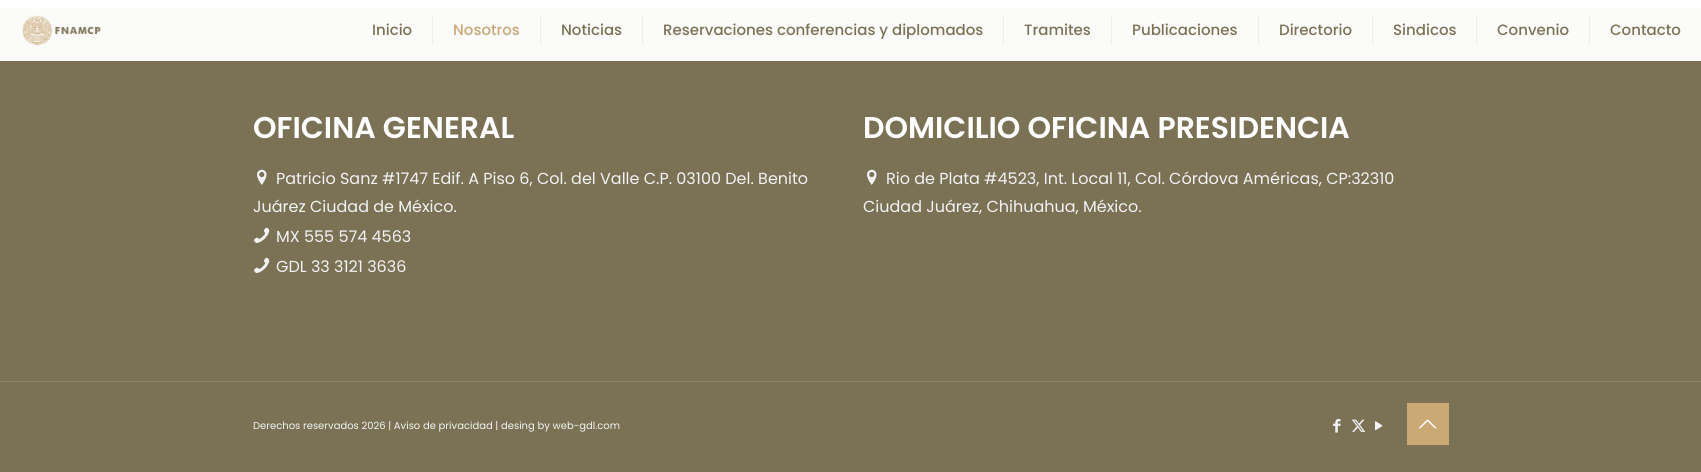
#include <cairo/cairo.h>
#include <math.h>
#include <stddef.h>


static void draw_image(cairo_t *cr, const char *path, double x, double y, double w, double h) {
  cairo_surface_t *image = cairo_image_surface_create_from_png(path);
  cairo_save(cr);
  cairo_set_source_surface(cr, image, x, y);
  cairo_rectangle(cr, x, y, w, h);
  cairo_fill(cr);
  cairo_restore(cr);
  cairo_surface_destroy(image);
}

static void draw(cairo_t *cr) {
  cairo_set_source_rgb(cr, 1, 1, 1);
  cairo_paint(cr);
  cairo_set_source_rgb(cr, 251 / 255.0, 251 / 255.0, 250 / 255.0);
  cairo_rectangle(cr, 0, 8, 1701, 53);
  cairo_fill(cr);
  draw_image(cr, "images/1.png", 22, 15, 79, 31);
  cairo_set_source_rgb(cr, 239 / 255.0, 238 / 255.0, 238 / 255.0);
  cairo_rectangle(cr, 432, 15, 1, 30);
  cairo_fill(cr);
  cairo_rectangle(cr, 540, 15, 1, 30);
  cairo_fill(cr);
  cairo_rectangle(cr, 642, 15, 1, 30);
  cairo_fill(cr);
  cairo_rectangle(cr, 1003, 15, 1, 30);
  cairo_fill(cr);
  cairo_rectangle(cr, 1111, 15, 1, 30);
  cairo_fill(cr);
  cairo_rectangle(cr, 1258, 15, 1, 30);
  cairo_fill(cr);
  cairo_rectangle(cr, 1372, 15, 1, 30);
  cairo_fill(cr);
  cairo_rectangle(cr, 1476, 15, 1, 30);
  cairo_fill(cr);
  cairo_rectangle(cr, 1589, 15, 1, 30);
  cairo_fill(cr);
  cairo_set_source_rgb(cr, 123 / 255.0, 114 / 255.0, 86 / 255.0);
  cairo_rectangle(cr, 0, 61, 1701, 411);
  cairo_fill(cr);
  draw_image(cr, "images/2.png", 257, 169, 10, 16);
  draw_image(cr, "images/3.png", 254, 227, 16, 16);
  draw_image(cr, "images/3.png", 254, 257, 16, 16);
  draw_image(cr, "images/2.png", 867, 169, 10, 16);
  cairo_set_source_rgb(cr, 136 / 255.0, 128 / 255.0, 103 / 255.0);
  cairo_rectangle(cr, 0, 381, 1701, 1);
  cairo_fill(cr);
  draw_image(cr, "images/4.png", 1333, 419, 8, 14);
  draw_image(cr, "images/5.png", 1351, 419, 15, 13);
  draw_image(cr, "images/6.png", 1375, 421, 8, 10);
  cairo_set_source_rgb(cr, 202 / 255.0, 169 / 255.0, 119 / 255.0);
  cairo_rectangle(cr, 1407, 403, 42, 42);
  cairo_fill(cr);
  draw_image(cr, "images/7.png", 1419, 419, 18, 10);
  cairo_select_font_face(cr, "Poppins Medium", CAIRO_FONT_SLANT_NORMAL, CAIRO_FONT_WEIGHT_NORMAL);
  cairo_set_font_size(cr, 15);
  cairo_set_source_rgb(cr, 123 / 255.0, 114 / 255.0, 86 / 255.0);
  cairo_move_to(cr, 372, 35);
  cairo_show_text(cr, "Inicio");
  cairo_set_source_rgb(cr, 200 / 255.0, 167 / 255.0, 118 / 255.0);
  cairo_move_to(cr, 453, 35);
  cairo_show_text(cr, "Nosotros");
  cairo_set_source_rgb(cr, 123 / 255.0, 114 / 255.0, 86 / 255.0);
  cairo_move_to(cr, 561, 35);
  cairo_show_text(cr, "Noticias");
  cairo_move_to(cr, 663, 35);
  cairo_show_text(cr, "Reservaciones conferencias y diplomados");
  cairo_move_to(cr, 1024, 35);
  cairo_show_text(cr, "Tramites");
  cairo_move_to(cr, 1132, 35);
  cairo_show_text(cr, "Publicaciones");
  cairo_move_to(cr, 1279, 35);
  cairo_show_text(cr, "Directorio");
  cairo_move_to(cr, 1393, 35);
  cairo_show_text(cr, "Sindicos");
  cairo_move_to(cr, 1497, 35);
  cairo_show_text(cr, "Convenio");
  cairo_move_to(cr, 1610, 35);
  cairo_show_text(cr, "Contacto");
  cairo_select_font_face(cr, "Poppins SemiBold", CAIRO_FONT_SLANT_NORMAL, CAIRO_FONT_WEIGHT_NORMAL);
  cairo_set_font_size(cr, 30);
  cairo_set_source_rgb(cr, 1, 1, 1);
  cairo_move_to(cr, 253, 138);
  cairo_show_text(cr, "OFICINA GENERAL");
  cairo_select_font_face(cr, "Poppins", CAIRO_FONT_SLANT_NORMAL, CAIRO_FONT_WEIGHT_NORMAL);
  cairo_set_font_size(cr, 16);
  cairo_set_source_rgb(cr, 242 / 255.0, 242 / 255.0, 242 / 255.0);
  cairo_move_to(cr, 276, 184);
  cairo_show_text(cr, "Patricio Sanz #1747 Edif. A Piso 6, Col. del Valle C.P. 03100 Del. Benito");
  cairo_move_to(cr, 253, 212);
  cairo_show_text(cr, "Juárez Ciudad de México.");
  cairo_move_to(cr, 276, 242);
  cairo_show_text(cr, "MX 555 574 4563");
  cairo_move_to(cr, 276, 272);
  cairo_show_text(cr, "GDL 33 3121 3636");
  cairo_select_font_face(cr, "Poppins SemiBold", CAIRO_FONT_SLANT_NORMAL, CAIRO_FONT_WEIGHT_NORMAL);
  cairo_set_font_size(cr, 30);
  cairo_set_source_rgb(cr, 1, 1, 1);
  cairo_move_to(cr, 863, 138);
  cairo_show_text(cr, "DOMICILIO OFICINA PRESIDENCIA");
  cairo_select_font_face(cr, "Poppins", CAIRO_FONT_SLANT_NORMAL, CAIRO_FONT_WEIGHT_NORMAL);
  cairo_set_font_size(cr, 16);
  cairo_set_source_rgb(cr, 242 / 255.0, 242 / 255.0, 242 / 255.0);
  cairo_move_to(cr, 886, 184);
  cairo_show_text(cr, "Rio de Plata #4523, Int. Local 11, Col. Córdova Américas, CP:32310");
  cairo_move_to(cr, 863, 212);
  cairo_show_text(cr, "Ciudad Juárez, Chihuahua, México.");
  cairo_set_font_size(cr, 10);
  cairo_move_to(cr, 253, 429);
  cairo_show_text(cr, "Derechos reservados 2026 | Aviso de privacidad | desing by web-gdl.com");
}

int main(void) {
  cairo_surface_t *surface = cairo_image_surface_create(CAIRO_FORMAT_RGB24, 1701, 472);
  cairo_t *cr = cairo_create(surface);
  cairo_font_options_t *options = cairo_font_options_create();
  cairo_font_options_set_hint_metrics(options, CAIRO_HINT_METRICS_OFF);
  cairo_font_options_set_hint_style(options, CAIRO_HINT_STYLE_NONE);
  cairo_set_font_options(cr, options);
  cairo_set_miter_limit(cr, 4);
  draw(cr);
  cairo_surface_write_to_png(surface, "out.png");
  cairo_font_options_destroy(options);
  cairo_destroy(cr);
  cairo_surface_destroy(surface);
  return 0;
}
